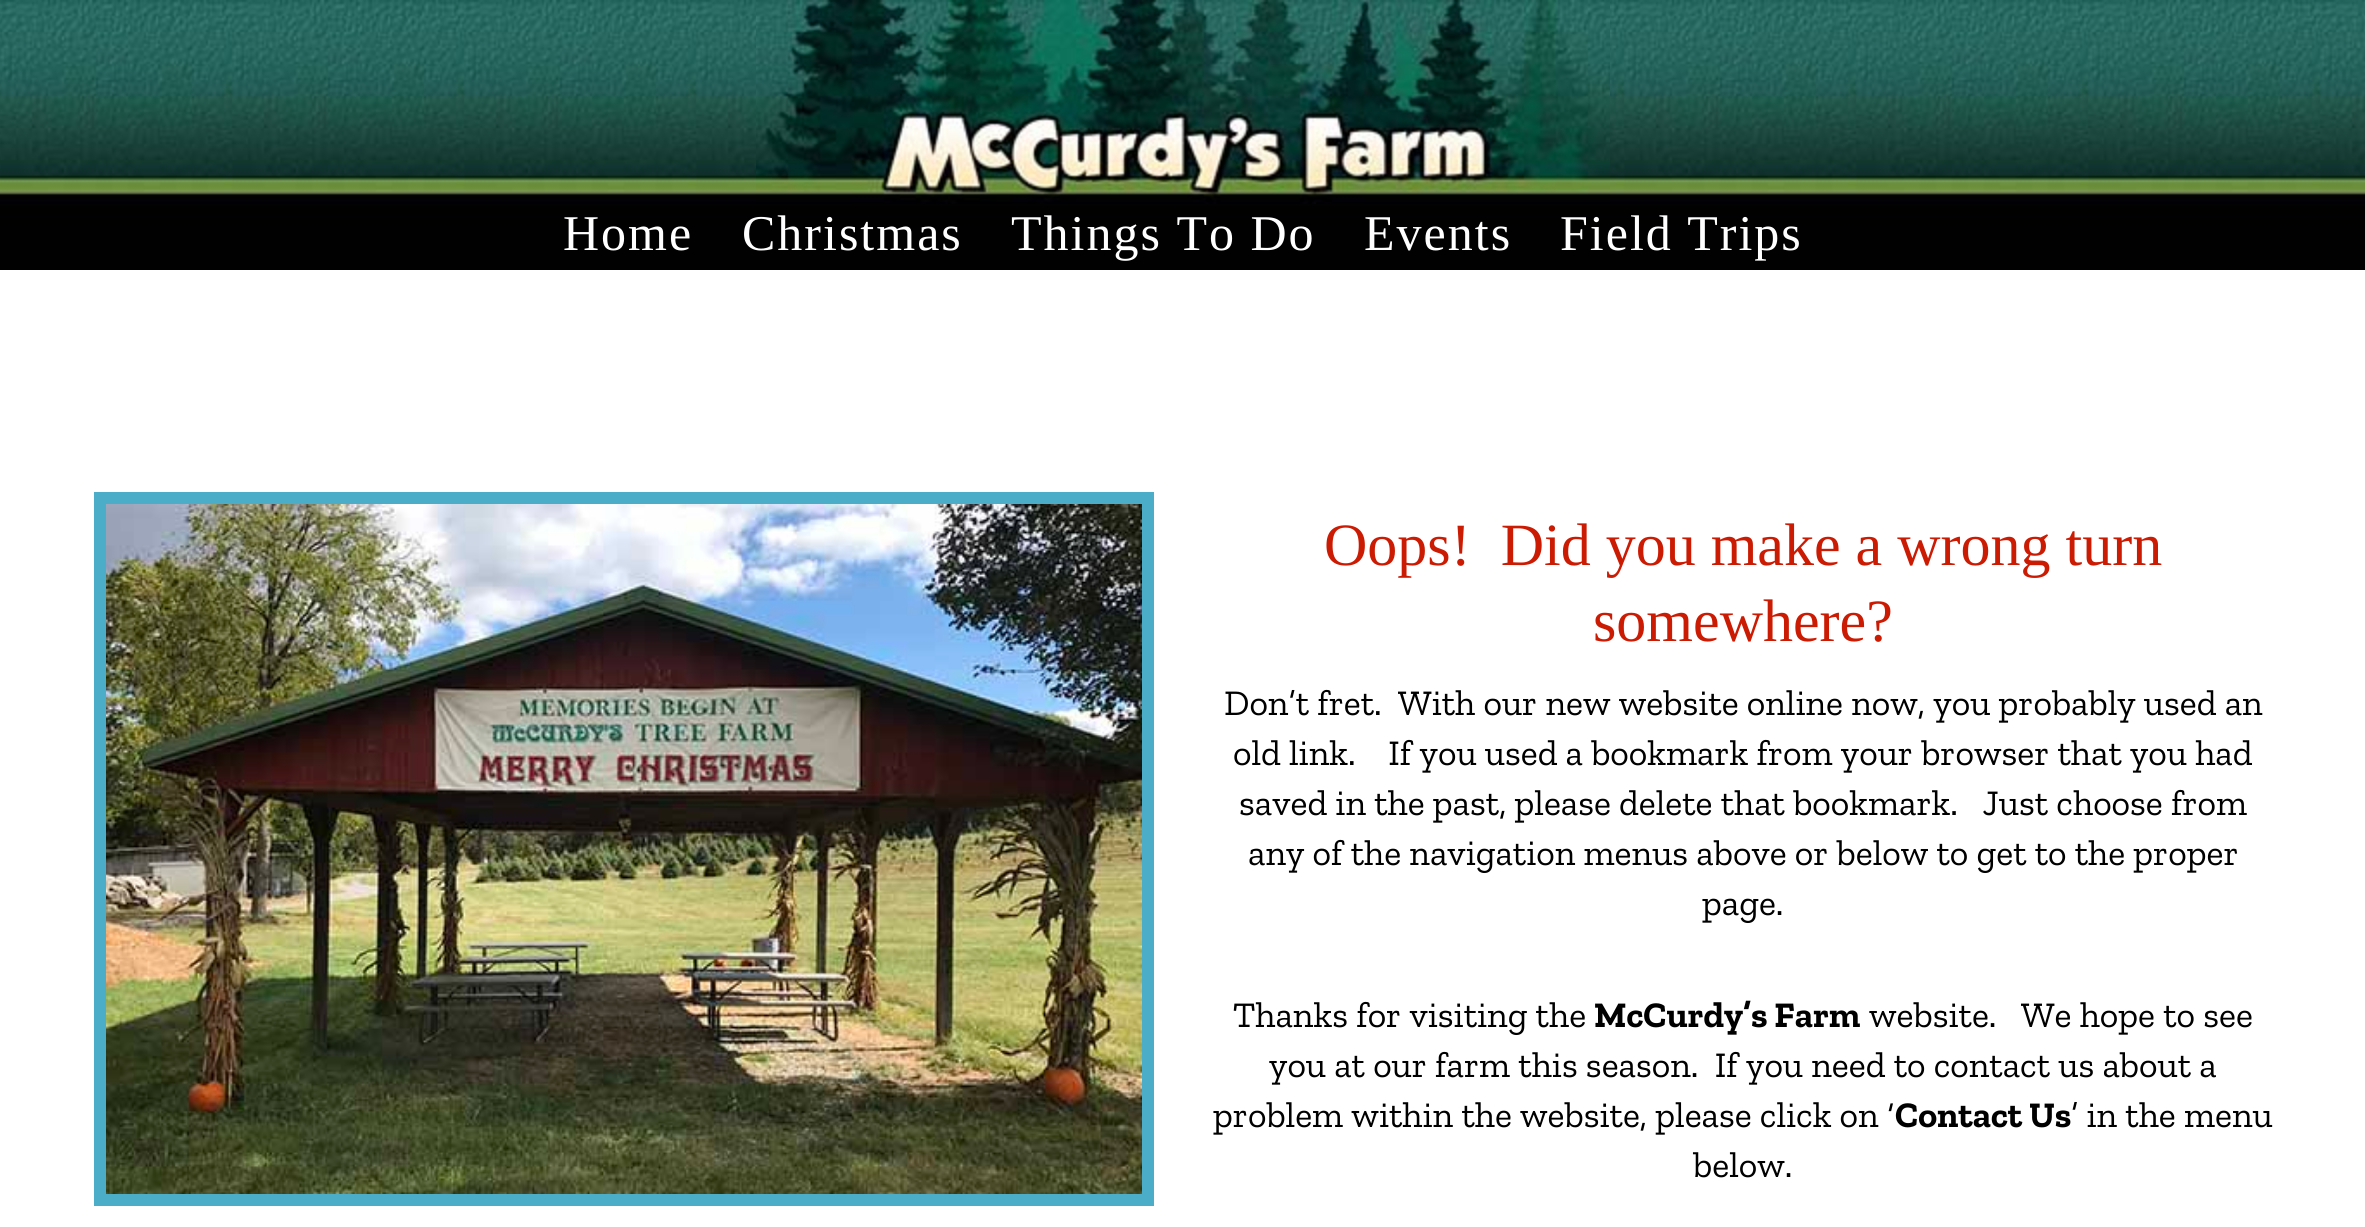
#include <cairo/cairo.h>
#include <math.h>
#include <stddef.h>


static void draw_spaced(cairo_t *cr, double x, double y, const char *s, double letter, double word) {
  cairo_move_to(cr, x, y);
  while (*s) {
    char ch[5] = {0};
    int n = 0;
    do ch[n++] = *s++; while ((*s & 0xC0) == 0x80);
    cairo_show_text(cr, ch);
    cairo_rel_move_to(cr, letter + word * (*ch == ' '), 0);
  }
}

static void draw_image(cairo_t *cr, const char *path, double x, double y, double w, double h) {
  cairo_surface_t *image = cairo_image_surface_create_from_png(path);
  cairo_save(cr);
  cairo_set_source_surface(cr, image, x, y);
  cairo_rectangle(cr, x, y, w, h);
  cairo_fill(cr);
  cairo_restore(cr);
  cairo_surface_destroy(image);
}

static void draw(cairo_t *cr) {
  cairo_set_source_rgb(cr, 1, 1, 1);
  cairo_paint(cr);
  draw_image(cr, "images/1.png", 0, 0, 2365, 270);
  draw_image(cr, "images/2.png", 756, 0, 854, 204);
  cairo_set_source_rgb(cr, 76 / 255.0, 173 / 255.0, 201 / 255.0);
  cairo_rectangle(cr, 94, 492, 1060, 714);
  cairo_fill(cr);
  draw_image(cr, "images/3.png", 106, 504, 1036, 690);
  cairo_select_font_face(cr, "Liberation Serif", CAIRO_FONT_SLANT_NORMAL, CAIRO_FONT_WEIGHT_NORMAL);
  cairo_set_font_size(cr, 50);
  cairo_set_source_rgb(cr, 1, 1, 1);
  draw_spaced(cr, 563, 250, "Home", 2, 0);
  draw_spaced(cr, 742, 250, "Christmas", 2, 0);
  draw_spaced(cr, 1011, 250, "Things To Do", 2, 0);
  draw_spaced(cr, 1364, 250, "Events", 2, 0);
  draw_spaced(cr, 1560, 250, "Field Trips", 2, 0);
  cairo_set_font_size(cr, 60);
  cairo_set_source_rgb(cr, 203 / 255.0, 27 / 255.0, 3 / 255.0);
  cairo_move_to(cr, 1324, 565);
  cairo_show_text(cr, "Oops!  Did you make a wrong turn");
  cairo_move_to(cr, 1593, 641);
  cairo_show_text(cr, "somewhere?");
  cairo_select_font_face(cr, "Zilla Slab", CAIRO_FONT_SLANT_NORMAL, CAIRO_FONT_WEIGHT_NORMAL);
  cairo_set_font_size(cr, 36);
  cairo_set_source_rgb(cr, 0, 0, 0);
  cairo_move_to(cr, 1224, 715);
  cairo_show_text(cr, "Don’t fret.  With our new website online now, you probably used an");
  cairo_move_to(cr, 1233, 765);
  cairo_show_text(cr, "old link.    If you used a bookmark from your browser that you had");
  cairo_move_to(cr, 1239, 815);
  cairo_show_text(cr, "saved in the past, please delete that bookmark.   Just choose from");
  cairo_move_to(cr, 1248, 865);
  cairo_show_text(cr, "any of the navigation menus above or below to get to the proper");
  cairo_move_to(cr, 1702, 915);
  cairo_show_text(cr, "page.");
  cairo_move_to(cr, 1233, 1027);
  cairo_show_text(cr, "Thanks for visiting the");
  cairo_select_font_face(cr, "Zilla Slab", CAIRO_FONT_SLANT_NORMAL, CAIRO_FONT_WEIGHT_BOLD);
  cairo_move_to(cr, 1594, 1027);
  cairo_show_text(cr, "McCurdy’s Farm");
  cairo_select_font_face(cr, "Zilla Slab", CAIRO_FONT_SLANT_NORMAL, CAIRO_FONT_WEIGHT_NORMAL);
  cairo_move_to(cr, 1869, 1027);
  cairo_show_text(cr, "website.   We hope to see");
  cairo_move_to(cr, 1269, 1077);
  cairo_show_text(cr, "you at our farm this season.  If you need to contact us about a");
  cairo_move_to(cr, 1213, 1127);
  cairo_show_text(cr, "problem within the website, please click on ‘");
  cairo_select_font_face(cr, "Zilla Slab", CAIRO_FONT_SLANT_NORMAL, CAIRO_FONT_WEIGHT_BOLD);
  cairo_move_to(cr, 1895, 1127);
  cairo_show_text(cr, "Contact Us");
  cairo_select_font_face(cr, "Zilla Slab", CAIRO_FONT_SLANT_NORMAL, CAIRO_FONT_WEIGHT_NORMAL);
  cairo_move_to(cr, 2071, 1127);
  cairo_show_text(cr, "’ in the menu");
  cairo_move_to(cr, 1693, 1177);
  cairo_show_text(cr, "below.");
}

int main(void) {
  cairo_surface_t *surface = cairo_image_surface_create(CAIRO_FORMAT_RGB24, 2365, 1227);
  cairo_t *cr = cairo_create(surface);
  cairo_font_options_t *options = cairo_font_options_create();
  cairo_font_options_set_hint_metrics(options, CAIRO_HINT_METRICS_OFF);
  cairo_font_options_set_hint_style(options, CAIRO_HINT_STYLE_NONE);
  cairo_set_font_options(cr, options);
  cairo_set_miter_limit(cr, 4);
  draw(cr);
  cairo_surface_write_to_png(surface, "out.png");
  cairo_font_options_destroy(options);
  cairo_destroy(cr);
  cairo_surface_destroy(surface);
  return 0;
}
